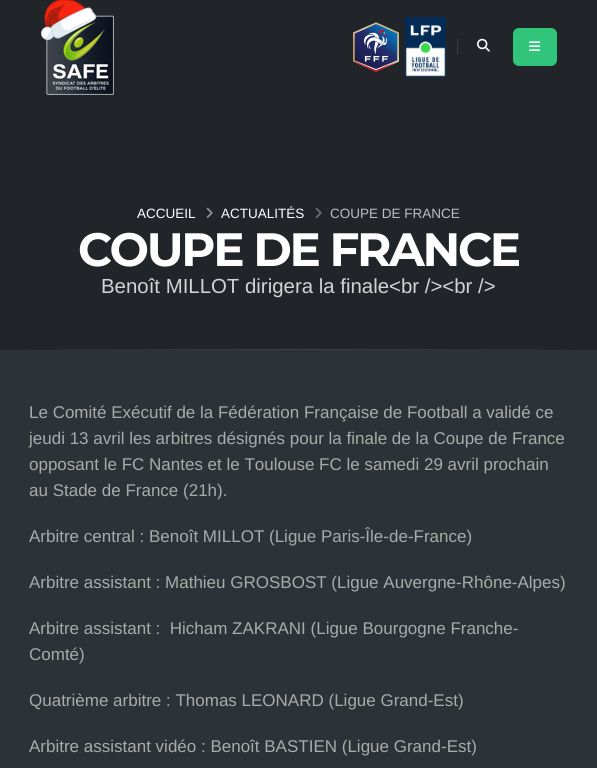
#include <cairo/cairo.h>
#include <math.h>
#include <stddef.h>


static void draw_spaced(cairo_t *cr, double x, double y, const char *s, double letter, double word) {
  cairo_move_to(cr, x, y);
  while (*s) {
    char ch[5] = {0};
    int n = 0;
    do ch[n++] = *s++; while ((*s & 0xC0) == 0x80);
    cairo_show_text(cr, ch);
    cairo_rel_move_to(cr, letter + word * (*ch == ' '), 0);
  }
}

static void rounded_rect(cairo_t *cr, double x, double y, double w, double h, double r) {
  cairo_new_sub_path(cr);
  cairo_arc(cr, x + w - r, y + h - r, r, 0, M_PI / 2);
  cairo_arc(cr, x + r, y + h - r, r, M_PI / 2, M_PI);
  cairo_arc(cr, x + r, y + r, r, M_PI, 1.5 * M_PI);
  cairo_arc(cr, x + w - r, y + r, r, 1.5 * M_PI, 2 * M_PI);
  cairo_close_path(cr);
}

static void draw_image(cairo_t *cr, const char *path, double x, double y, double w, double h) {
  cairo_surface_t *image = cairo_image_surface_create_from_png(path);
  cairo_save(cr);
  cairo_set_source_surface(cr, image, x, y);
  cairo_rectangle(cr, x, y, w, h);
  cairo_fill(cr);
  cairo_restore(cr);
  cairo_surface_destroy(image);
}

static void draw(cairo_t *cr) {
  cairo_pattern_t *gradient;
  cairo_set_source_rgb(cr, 33 / 255.0, 37 / 255.0, 41 / 255.0);
  cairo_paint(cr);
  draw_image(cr, "images/1.png", 41, 0, 73, 95);
  draw_image(cr, "images/2.png", 353, 22, 46, 50);
  draw_image(cr, "images/3.png", 405, 17, 41, 60);
  cairo_set_source_rgb(cr, 55 / 255.0, 59 / 255.0, 62 / 255.0);
  cairo_rectangle(cr, 457, 39, 1, 16);
  cairo_fill(cr);
  draw_image(cr, "images/4.png", 477, 38, 13, 14);
  cairo_set_source_rgb(cr, 48 / 255.0, 197 / 255.0, 122 / 255.0);
  rounded_rect(cr, 513, 28, 44, 38, 6);
  cairo_fill(cr);
  draw_image(cr, "images/5.png", 529, 41, 12, 10);
  draw_image(cr, "images/6.png", 206, 207, 7, 11);
  draw_image(cr, "images/7.png", 315, 207, 7, 11);
  gradient = cairo_pattern_create_linear(597, 350, 0, 350);
  cairo_pattern_add_color_stop_rgba(gradient, 0, 33 / 255.0, 37 / 255.0, 41 / 255.0, 1);
  cairo_pattern_add_color_stop_rgba(gradient, 0.5, 63 / 255.0, 66 / 255.0, 71 / 255.0, 1);
  cairo_pattern_add_color_stop_rgba(gradient, 1, 33 / 255.0, 37 / 255.0, 41 / 255.0, 1);
  cairo_set_source(cr, gradient);
  cairo_pattern_destroy(gradient);
  cairo_rectangle(cr, 25, 349, 547, 1);
  cairo_fill(cr);
  cairo_set_source_rgb(cr, 44 / 255.0, 50 / 255.0, 55 / 255.0);
  cairo_rectangle(cr, 0, 350, 597, 418);
  cairo_fill(cr);
  cairo_select_font_face(cr, "Liberation Sans", CAIRO_FONT_SLANT_NORMAL, CAIRO_FONT_WEIGHT_NORMAL);
  cairo_set_font_size(cr, 13.5);
  cairo_set_source_rgb(cr, 1, 1, 1);
  cairo_move_to(cr, 137, 218);
  cairo_show_text(cr, "ACCUEIL");
  cairo_move_to(cr, 221, 218);
  cairo_show_text(cr, "ACTUALITÉS");
  cairo_set_source_rgb(cr, 188 / 255.0, 190 / 255.0, 191 / 255.0);
  cairo_move_to(cr, 330, 218);
  cairo_show_text(cr, "COUPE DE FRANCE");
  cairo_select_font_face(cr, "Montserrat", CAIRO_FONT_SLANT_NORMAL, CAIRO_FONT_WEIGHT_BOLD);
  cairo_set_font_size(cr, 46.75);
  cairo_set_source_rgb(cr, 1, 1, 1);
  draw_spaced(cr, 78, 266, "COUPE DE FRANCE", -2.3, 0);
  cairo_select_font_face(cr, "Liberation Sans", CAIRO_FONT_SLANT_NORMAL, CAIRO_FONT_WEIGHT_NORMAL);
  cairo_set_font_size(cr, 20.4);
  cairo_set_source_rgb(cr, 211 / 255.0, 211 / 255.0, 212 / 255.0);
  cairo_move_to(cr, 101, 293);
  cairo_show_text(cr, "Benoît MILLOT dirigera la finale<br /><br />");
  cairo_set_font_size(cr, 17);
  cairo_set_source_rgb(cr, 170 / 255.0, 170 / 255.0, 170 / 255.0);
  cairo_move_to(cr, 29, 418);
  cairo_show_text(cr, "Le Comité Exécutif de la Fédération Française de Football a validé ce");
  cairo_move_to(cr, 29, 444);
  cairo_show_text(cr, "jeudi 13 avril les arbitres désignés pour la finale de la Coupe de France");
  cairo_move_to(cr, 29, 470);
  cairo_show_text(cr, "opposant le FC Nantes et le Toulouse FC le samedi 29 avril prochain");
  cairo_move_to(cr, 29, 496);
  cairo_show_text(cr, "au Stade de France (21h).");
  cairo_move_to(cr, 29, 542);
  cairo_show_text(cr, "Arbitre central : Benoît MILLOT (Ligue Paris-Île-de-France)");
  cairo_move_to(cr, 29, 588);
  cairo_show_text(cr, "Arbitre assistant : Mathieu GROSBOST (Ligue Auvergne-Rhône-Alpes)");
  cairo_move_to(cr, 29, 634);
  cairo_show_text(cr, "Arbitre assistant :  Hicham ZAKRANI (Ligue Bourgogne Franche-");
  cairo_move_to(cr, 29, 660);
  cairo_show_text(cr, "Comté)");
  cairo_move_to(cr, 29, 706);
  cairo_show_text(cr, "Quatrième arbitre : Thomas LEONARD (Ligue Grand-Est)");
  cairo_move_to(cr, 29, 752);
  cairo_show_text(cr, "Arbitre assistant vidéo : Benoît BASTIEN (Ligue Grand-Est)");
}

int main(void) {
  cairo_surface_t *surface = cairo_image_surface_create(CAIRO_FORMAT_RGB24, 597, 768);
  cairo_t *cr = cairo_create(surface);
  cairo_font_options_t *options = cairo_font_options_create();
  cairo_font_options_set_hint_metrics(options, CAIRO_HINT_METRICS_OFF);
  cairo_font_options_set_hint_style(options, CAIRO_HINT_STYLE_NONE);
  cairo_set_font_options(cr, options);
  cairo_set_miter_limit(cr, 4);
  draw(cr);
  cairo_surface_write_to_png(surface, "out.png");
  cairo_font_options_destroy(options);
  cairo_destroy(cr);
  cairo_surface_destroy(surface);
  return 0;
}
